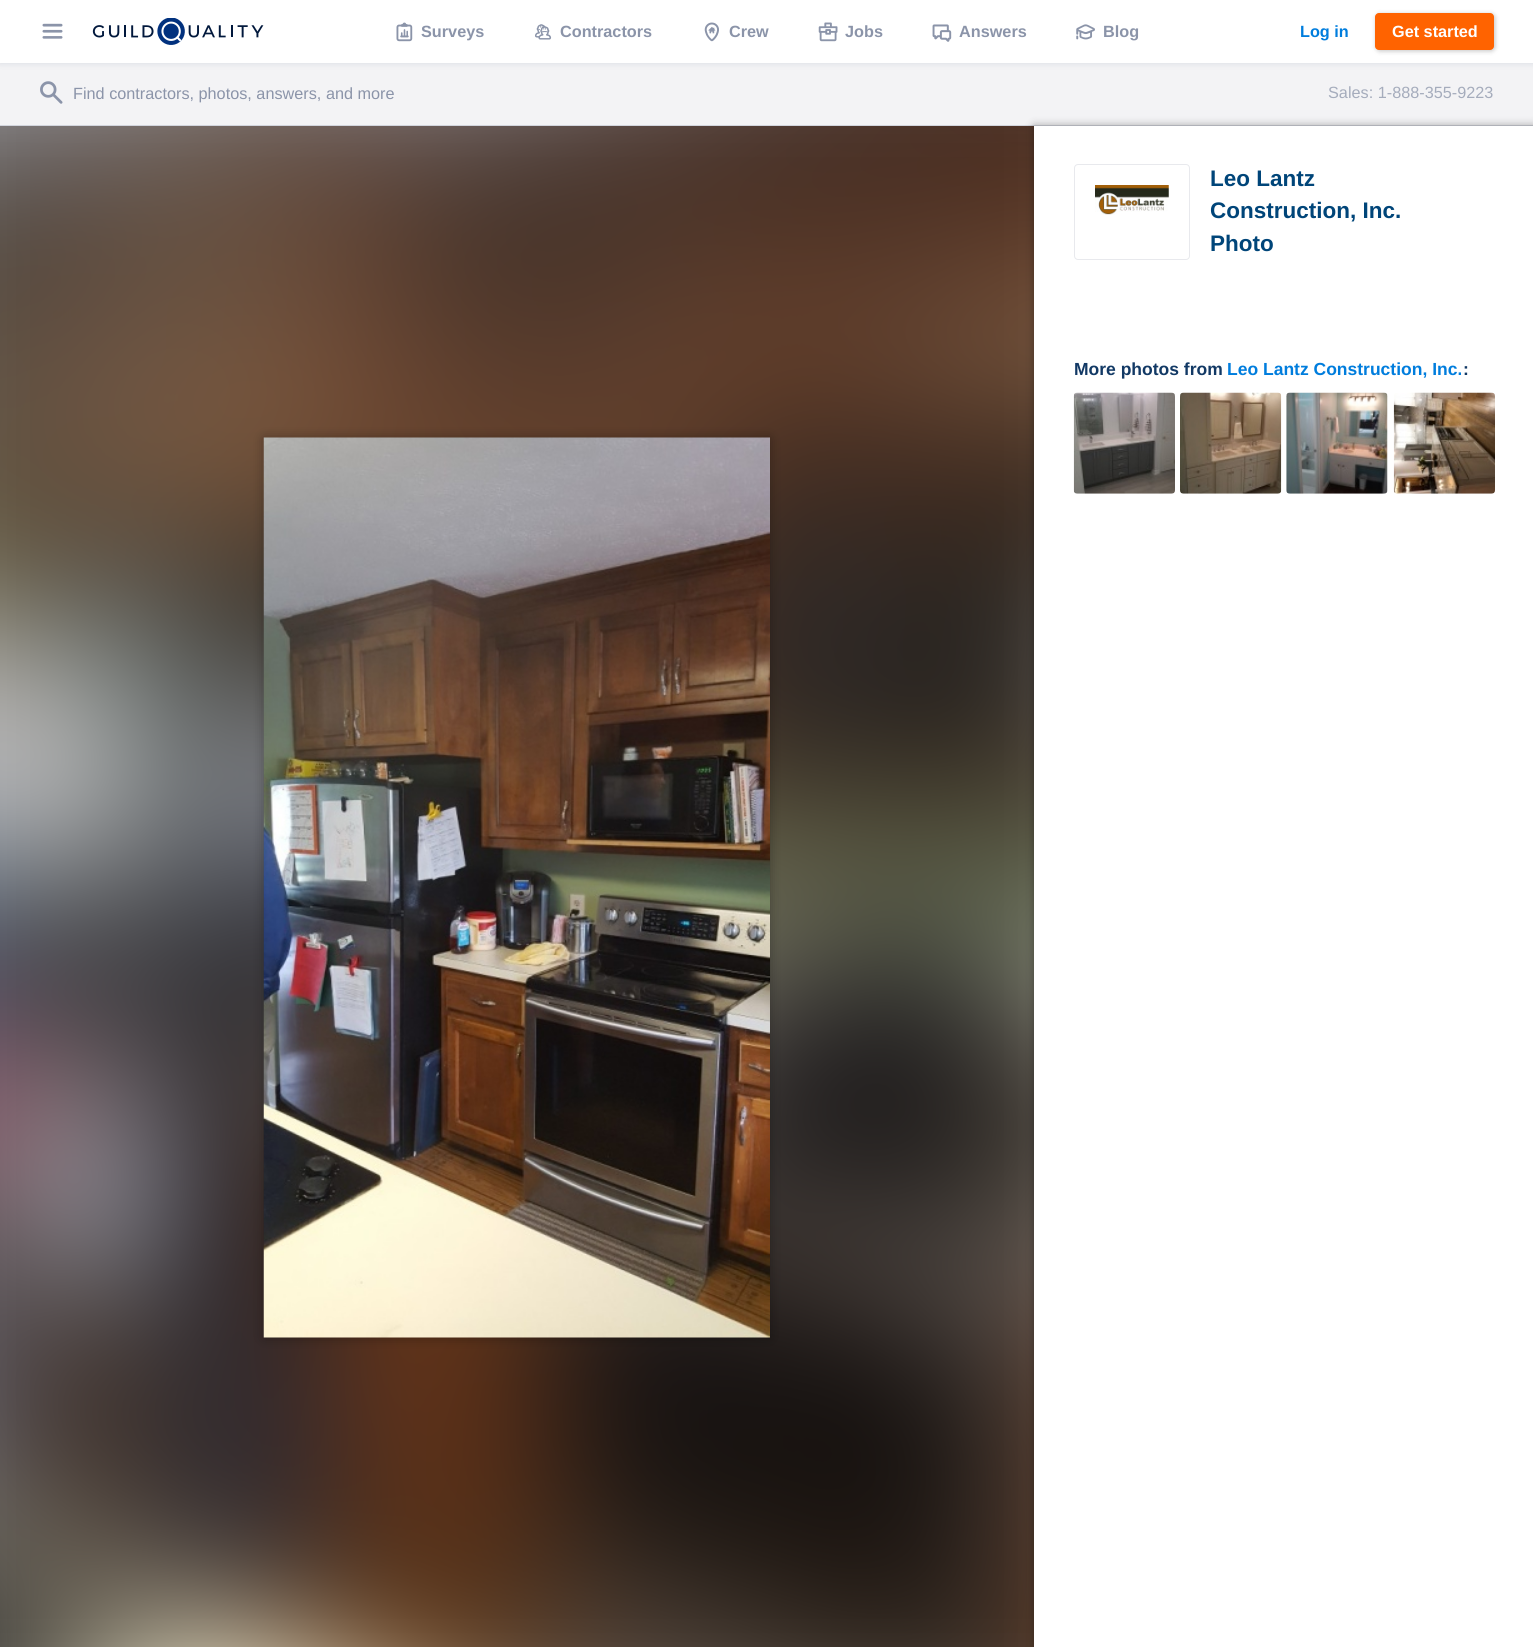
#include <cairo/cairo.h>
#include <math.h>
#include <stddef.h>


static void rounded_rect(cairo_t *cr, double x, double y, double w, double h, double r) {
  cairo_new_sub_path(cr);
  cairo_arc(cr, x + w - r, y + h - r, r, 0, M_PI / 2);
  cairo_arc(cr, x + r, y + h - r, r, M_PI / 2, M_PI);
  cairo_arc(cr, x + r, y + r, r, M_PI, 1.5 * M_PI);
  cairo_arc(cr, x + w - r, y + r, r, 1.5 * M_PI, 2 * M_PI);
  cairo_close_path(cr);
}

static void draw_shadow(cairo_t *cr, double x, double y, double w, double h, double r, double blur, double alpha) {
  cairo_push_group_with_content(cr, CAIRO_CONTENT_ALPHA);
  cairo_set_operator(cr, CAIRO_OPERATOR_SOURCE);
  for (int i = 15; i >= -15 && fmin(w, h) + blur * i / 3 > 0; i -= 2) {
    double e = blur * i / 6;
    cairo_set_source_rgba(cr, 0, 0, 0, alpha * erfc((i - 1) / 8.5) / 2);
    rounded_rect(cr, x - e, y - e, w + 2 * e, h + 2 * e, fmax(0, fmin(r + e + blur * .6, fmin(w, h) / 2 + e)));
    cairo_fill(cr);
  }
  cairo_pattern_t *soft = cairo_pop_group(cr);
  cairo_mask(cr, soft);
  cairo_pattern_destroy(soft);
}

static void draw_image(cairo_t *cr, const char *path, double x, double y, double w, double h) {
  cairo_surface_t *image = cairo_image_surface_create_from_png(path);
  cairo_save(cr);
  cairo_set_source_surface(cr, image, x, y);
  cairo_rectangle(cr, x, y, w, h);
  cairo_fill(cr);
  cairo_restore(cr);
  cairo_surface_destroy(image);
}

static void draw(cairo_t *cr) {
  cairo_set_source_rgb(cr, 1, 1, 1);
  cairo_paint(cr);
  cairo_set_source_rgb(cr, 243 / 255.0, 243 / 255.0, 245 / 255.0);
  cairo_rectangle(cr, 0, 63, 1533, 62);
  cairo_fill(cr);
  cairo_set_source_rgb(cr, 51 / 255.0, 74 / 255.0, 109 / 255.0);
  draw_shadow(cr, 0, 1, 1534, 63, 0, 3, 0.12);
  cairo_set_source_rgb(cr, 1, 1, 1);
  cairo_rectangle(cr, 0, 0, 1533, 63);
  cairo_fill(cr);
  draw_image(cr, "images/1.png", 42, 23, 21, 16);
  draw_image(cr, "images/2.png", 92, 18, 172, 27);
  draw_image(cr, "images/3.png", 396, 22, 17, 20);
  draw_image(cr, "images/4.png", 535, 24, 17, 16);
  draw_image(cr, "images/5.png", 704, 22, 15, 20);
  draw_image(cr, "images/6.png", 818, 22, 20, 20);
  draw_image(cr, "images/7.png", 932, 24, 20, 18);
  draw_image(cr, "images/8.png", 1076, 24, 19, 16);
  cairo_set_source_rgb(cr, 0, 0, 0);
  draw_shadow(cr, 1376, 14, 119, 37, 4, 2.5, 0.24);
  cairo_set_source_rgb(cr, 1, 99 / 255.0, 0);
  rounded_rect(cr, 1375, 13, 119, 37, 4);
  cairo_fill(cr);
  cairo_set_source_rgb(cr, 210 / 255.0, 213 / 255.0, 221 / 255.0);
  cairo_rectangle(cr, 0, 125, 1533, 1);
  cairo_fill(cr);
  draw_image(cr, "images/9.png", 40, 81, 23, 23);
  draw_image(cr, "images/10.png", 0, 126, 1034, 1521);
  cairo_set_source_rgb(cr, 1 / 255.0, 2 / 255.0, 2 / 255.0);
  draw_shadow(cr, 264, 438, 506, 900, 0, 6, 0.3);
  draw_image(cr, "images/11.png", 263, 437, 507, 901);
  draw_shadow(cr, 1034, 126, 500, 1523, 0, 4.5, 0.36);
  cairo_set_source_rgb(cr, 1, 1, 1);
  cairo_rectangle(cr, 1034, 126, 499, 1521);
  cairo_fill(cr);
  rounded_rect(cr, 1074.5, 164.5, 115, 95, 3.5);
  cairo_set_source_rgb(cr, 232 / 255.0, 233 / 255.0, 237 / 255.0);
  cairo_set_line_width(cr, 1);
  cairo_stroke(cr);
  draw_image(cr, "images/12.png", 1095, 185, 74, 30);
  draw_image(cr, "images/13.png", 1073, 392, 102, 102);
  draw_image(cr, "images/14.png", 1180, 392, 102, 102);
  draw_image(cr, "images/15.png", 1286, 392, 102, 102);
  draw_image(cr, "images/16.png", 1393, 392, 102, 102);
  cairo_select_font_face(cr, "Liberation Sans", CAIRO_FONT_SLANT_NORMAL, CAIRO_FONT_WEIGHT_BOLD);
  cairo_set_font_size(cr, 16.25);
  cairo_set_source_rgb(cr, 139 / 255.0, 148 / 255.0, 169 / 255.0);
  cairo_move_to(cr, 421, 37);
  cairo_show_text(cr, "Surveys");
  cairo_move_to(cr, 560, 37);
  cairo_show_text(cr, "Contractors");
  cairo_move_to(cr, 729, 37);
  cairo_show_text(cr, "Crew");
  cairo_move_to(cr, 845, 37);
  cairo_show_text(cr, "Jobs");
  cairo_move_to(cr, 959, 37);
  cairo_show_text(cr, "Answers");
  cairo_move_to(cr, 1103, 37);
  cairo_show_text(cr, "Blog");
  cairo_set_source_rgb(cr, 0, 125 / 255.0, 221 / 255.0);
  cairo_move_to(cr, 1300, 37);
  cairo_show_text(cr, "Log in");
  cairo_set_source_rgb(cr, 1, 1, 1);
  cairo_move_to(cr, 1392, 37);
  cairo_show_text(cr, "Get started");
  cairo_select_font_face(cr, "Liberation Sans", CAIRO_FONT_SLANT_NORMAL, CAIRO_FONT_WEIGHT_NORMAL);
  cairo_set_source_rgb(cr, 139 / 255.0, 148 / 255.0, 169 / 255.0);
  cairo_move_to(cr, 73, 99);
  cairo_show_text(cr, "Find contractors, photos, answers, and more");
  cairo_set_source_rgb(cr, 165 / 255.0, 172 / 255.0, 188 / 255.0);
  cairo_move_to(cr, 1328, 98);
  cairo_show_text(cr, "Sales: 1-888-355-9223");
  cairo_select_font_face(cr, "Liberation Sans", CAIRO_FONT_SLANT_NORMAL, CAIRO_FONT_WEIGHT_BOLD);
  cairo_set_font_size(cr, 22.5);
  cairo_set_source_rgb(cr, 0, 69 / 255.0, 121 / 255.0);
  cairo_move_to(cr, 1210, 186);
  cairo_show_text(cr, "Leo Lantz");
  cairo_move_to(cr, 1210, 218);
  cairo_show_text(cr, "Construction, Inc.");
  cairo_move_to(cr, 1210, 251);
  cairo_show_text(cr, "Photo");
  cairo_set_font_size(cr, 17.5);
  cairo_set_source_rgb(cr, 18 / 255.0, 57 / 255.0, 101 / 255.0);
  cairo_move_to(cr, 1074, 375);
  cairo_show_text(cr, "More photos from");
  cairo_set_source_rgb(cr, 0, 125 / 255.0, 221 / 255.0);
  cairo_move_to(cr, 1227, 375);
  cairo_show_text(cr, "Leo Lantz Construction, Inc.");
  cairo_set_source_rgb(cr, 18 / 255.0, 57 / 255.0, 101 / 255.0);
  cairo_move_to(cr, 1463, 375);
  cairo_show_text(cr, ":");
}

int main(void) {
  cairo_surface_t *surface = cairo_image_surface_create(CAIRO_FORMAT_RGB24, 1533, 1647);
  cairo_t *cr = cairo_create(surface);
  cairo_font_options_t *options = cairo_font_options_create();
  cairo_font_options_set_hint_metrics(options, CAIRO_HINT_METRICS_OFF);
  cairo_font_options_set_hint_style(options, CAIRO_HINT_STYLE_NONE);
  cairo_set_font_options(cr, options);
  cairo_set_miter_limit(cr, 4);
  draw(cr);
  cairo_surface_write_to_png(surface, "out.png");
  cairo_font_options_destroy(options);
  cairo_destroy(cr);
  cairo_surface_destroy(surface);
  return 0;
}
